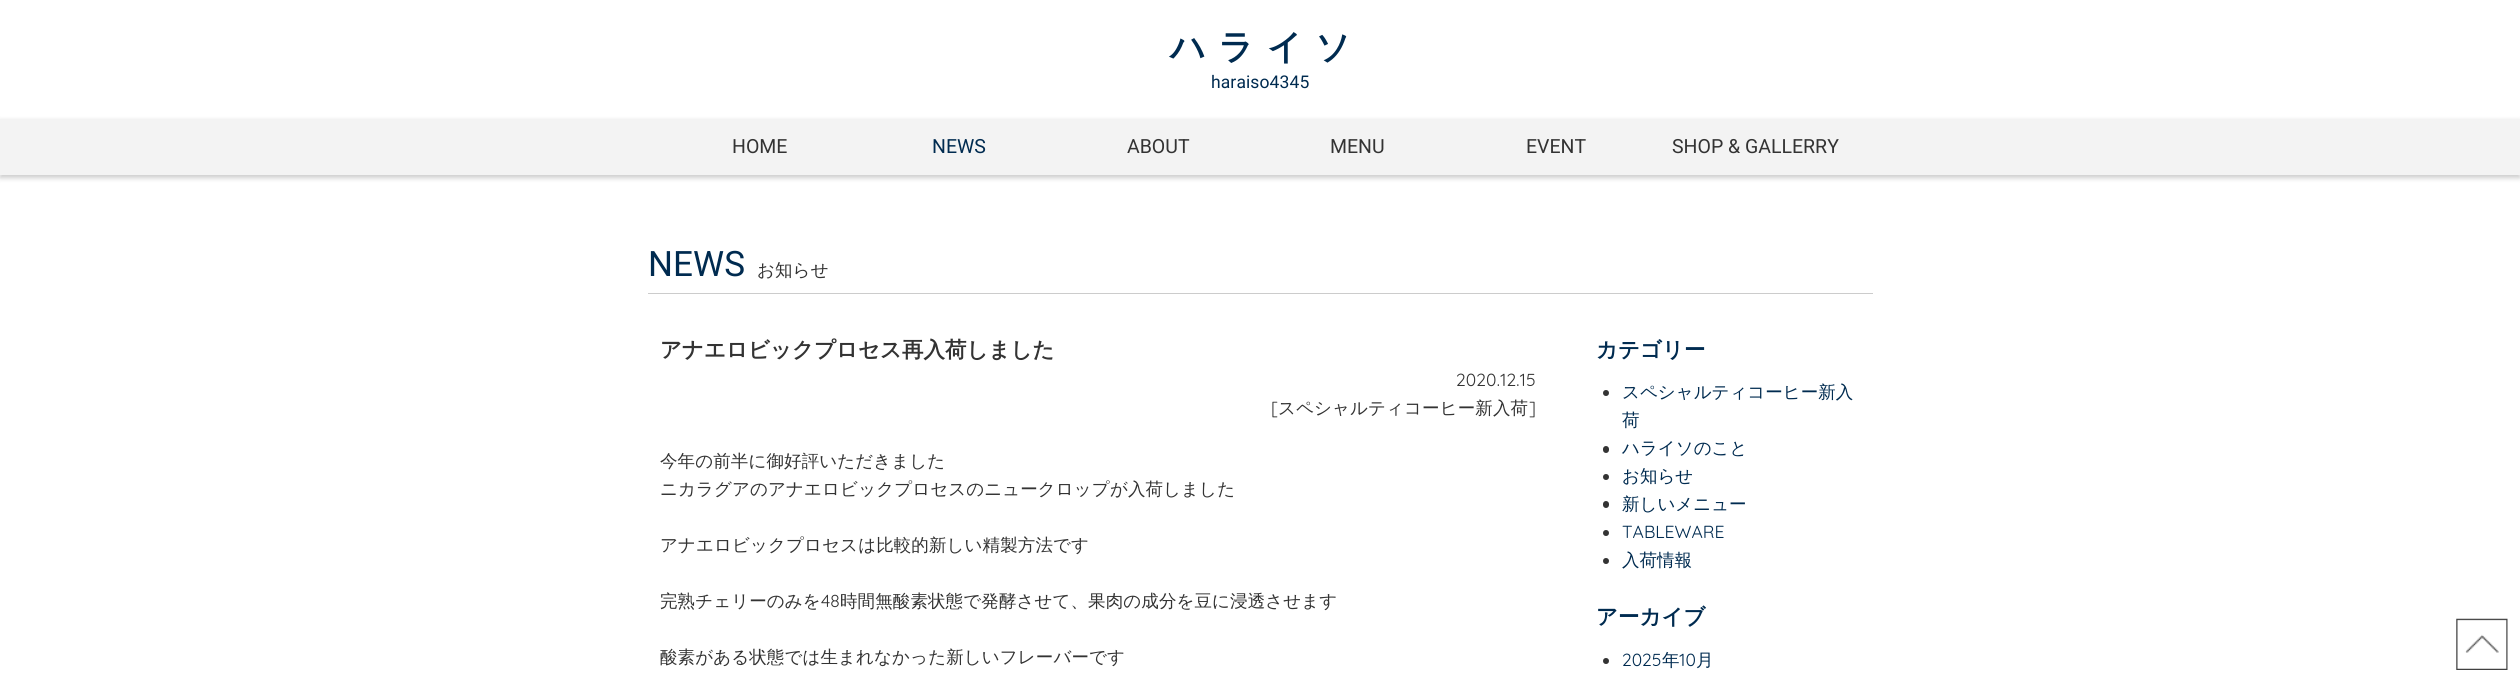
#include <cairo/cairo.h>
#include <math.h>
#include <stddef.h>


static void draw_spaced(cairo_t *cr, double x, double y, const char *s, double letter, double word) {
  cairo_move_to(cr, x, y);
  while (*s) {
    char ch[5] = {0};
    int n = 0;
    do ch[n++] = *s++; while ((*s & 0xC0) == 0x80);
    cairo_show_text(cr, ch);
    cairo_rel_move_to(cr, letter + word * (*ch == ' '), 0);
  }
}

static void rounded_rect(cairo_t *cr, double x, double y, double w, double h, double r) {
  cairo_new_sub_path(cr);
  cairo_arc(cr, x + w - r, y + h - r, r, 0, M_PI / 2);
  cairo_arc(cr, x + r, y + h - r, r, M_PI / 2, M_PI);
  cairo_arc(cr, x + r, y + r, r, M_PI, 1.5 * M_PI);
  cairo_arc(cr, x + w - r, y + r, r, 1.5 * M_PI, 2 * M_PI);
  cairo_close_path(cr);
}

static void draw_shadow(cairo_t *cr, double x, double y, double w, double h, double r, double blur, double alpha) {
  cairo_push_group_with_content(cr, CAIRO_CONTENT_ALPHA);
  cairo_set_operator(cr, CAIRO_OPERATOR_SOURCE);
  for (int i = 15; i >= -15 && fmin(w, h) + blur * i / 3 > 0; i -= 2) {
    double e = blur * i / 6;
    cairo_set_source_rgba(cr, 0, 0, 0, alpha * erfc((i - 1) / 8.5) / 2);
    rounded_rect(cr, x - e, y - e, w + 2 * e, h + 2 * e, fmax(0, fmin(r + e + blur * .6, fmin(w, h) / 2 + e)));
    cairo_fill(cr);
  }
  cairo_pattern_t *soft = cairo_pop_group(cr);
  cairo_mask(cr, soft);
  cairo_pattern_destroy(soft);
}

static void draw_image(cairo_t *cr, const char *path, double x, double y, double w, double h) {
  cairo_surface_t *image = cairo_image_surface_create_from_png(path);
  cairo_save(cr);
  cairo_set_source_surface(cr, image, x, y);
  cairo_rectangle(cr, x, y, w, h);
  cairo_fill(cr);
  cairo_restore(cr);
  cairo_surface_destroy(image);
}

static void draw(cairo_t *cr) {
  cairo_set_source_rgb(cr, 1, 1, 1);
  cairo_paint(cr);
  cairo_set_source_rgb(cr, 0, 0, 0);
  draw_shadow(cr, 0, 121, 2520, 57, 0, 2.5, 0.2);
  cairo_set_source_rgb(cr, 243 / 255.0, 243 / 255.0, 243 / 255.0);
  cairo_rectangle(cr, 0, 119, 2520, 56);
  cairo_fill(cr);
  cairo_set_source_rgb(cr, 204 / 255.0, 204 / 255.0, 204 / 255.0);
  cairo_rectangle(cr, 648, 293, 1225, 1);
  cairo_fill(cr);
  cairo_set_source_rgb(cr, 51 / 255.0, 51 / 255.0, 51 / 255.0);
  cairo_arc(cr, 1606, 393, 3, 0, 2 * M_PI);
  cairo_fill(cr);
  rounded_rect(cr, 1603, 446, 6, 7, 3);
  cairo_fill(cr);
  cairo_arc(cr, 1606, 477, 3, 0, 2 * M_PI);
  cairo_fill(cr);
  rounded_rect(cr, 1603, 501, 6, 7, 3);
  cairo_fill(cr);
  cairo_arc(cr, 1606, 533, 3, 0, 2 * M_PI);
  cairo_fill(cr);
  cairo_arc(cr, 1606, 561, 3, 0, 2 * M_PI);
  cairo_fill(cr);
  cairo_arc(cr, 1606, 661, 3, 0, 2 * M_PI);
  cairo_fill(cr);
  draw_image(cr, "images/1.png", 2456, 618, 52, 52);
  cairo_select_font_face(cr, "WenQuanYi Zen Hei", CAIRO_FONT_SLANT_NORMAL, CAIRO_FONT_WEIGHT_BOLD);
  cairo_set_font_size(cr, 35);
  cairo_set_source_rgb(cr, 0, 43 / 255.0, 80 / 255.0);
  draw_spaced(cr, 1170, 59, "ハライソ", 12.5, 0);
  cairo_select_font_face(cr, "Roboto", CAIRO_FONT_SLANT_NORMAL, CAIRO_FONT_WEIGHT_NORMAL);
  cairo_set_font_size(cr, 17.5);
  draw_spaced(cr, 1211, 88, "haraiso4345", 0.1, 0);
  cairo_set_font_size(cr, 19.5);
  cairo_set_source_rgb(cr, 51 / 255.0, 51 / 255.0, 51 / 255.0);
  cairo_move_to(cr, 732, 153);
  cairo_show_text(cr, "HOME");
  cairo_set_source_rgb(cr, 0, 43 / 255.0, 80 / 255.0);
  cairo_move_to(cr, 932, 153);
  cairo_show_text(cr, "NEWS");
  cairo_set_source_rgb(cr, 51 / 255.0, 51 / 255.0, 51 / 255.0);
  cairo_move_to(cr, 1127, 153);
  cairo_show_text(cr, "ABOUT");
  cairo_move_to(cr, 1330, 153);
  cairo_show_text(cr, "MENU");
  cairo_move_to(cr, 1526, 153);
  cairo_show_text(cr, "EVENT");
  cairo_move_to(cr, 1672, 153);
  cairo_show_text(cr, "SHOP & GALLERRY");
  cairo_set_font_size(cr, 35);
  cairo_set_source_rgb(cr, 0, 43 / 255.0, 80 / 255.0);
  draw_spaced(cr, 648, 276, "NEWS", 0.1, 0);
  cairo_select_font_face(cr, "WenQuanYi Zen Hei Medium", CAIRO_FONT_SLANT_NORMAL, CAIRO_FONT_WEIGHT_NORMAL);
  cairo_set_font_size(cr, 17.5);
  cairo_set_source_rgb(cr, 51 / 255.0, 51 / 255.0, 51 / 255.0);
  draw_spaced(cr, 757, 276, "お知らせ", 0.1, 0);
  cairo_select_font_face(cr, "WenQuanYi Zen Hei", CAIRO_FONT_SLANT_NORMAL, CAIRO_FONT_WEIGHT_BOLD);
  cairo_set_font_size(cr, 21.4);
  draw_spaced(cr, 660, 357, "アナエロビックプロセス再入荷しました", 0.1, 0);
  cairo_select_font_face(cr, "Quicksand", CAIRO_FONT_SLANT_NORMAL, CAIRO_FONT_WEIGHT_NORMAL);
  cairo_set_font_size(cr, 17.5);
  draw_spaced(cr, 1456, 386, "2020.12.15", 0.1, 0);
  draw_spaced(cr, 1271, 414, "[", 0.1, 0);
  cairo_select_font_face(cr, "WenQuanYi Zen Hei Medium", CAIRO_FONT_SLANT_NORMAL, CAIRO_FONT_WEIGHT_NORMAL);
  draw_spaced(cr, 1278, 414, "スペシャルティコーヒー新入荷", 0.1, 0);
  cairo_select_font_face(cr, "Quicksand", CAIRO_FONT_SLANT_NORMAL, CAIRO_FONT_WEIGHT_NORMAL);
  draw_spaced(cr, 1529, 414, "]", 0.1, 0);
  cairo_select_font_face(cr, "WenQuanYi Zen Hei Medium", CAIRO_FONT_SLANT_NORMAL, CAIRO_FONT_WEIGHT_NORMAL);
  draw_spaced(cr, 660, 467, "今年の前半に御好評いただきました", 0.1, 0);
  draw_spaced(cr, 660, 495, "ニカラグアのアナエロビックプロセスのニュークロップが入荷しました", 0.1, 0);
  draw_spaced(cr, 660, 551, "アナエロビックプロセスは比較的新しい精製方法です", 0.1, 0);
  draw_spaced(cr, 660, 607, "完熟チェリーのみを", 0.1, 0);
  cairo_select_font_face(cr, "Quicksand", CAIRO_FONT_SLANT_NORMAL, CAIRO_FONT_WEIGHT_NORMAL);
  draw_spaced(cr, 821, 607, "48", 0.1, 0);
  cairo_select_font_face(cr, "WenQuanYi Zen Hei Medium", CAIRO_FONT_SLANT_NORMAL, CAIRO_FONT_WEIGHT_NORMAL);
  draw_spaced(cr, 840, 607, "時間無酸素状態で発酵させて、果肉の成分を豆に浸透させます", 0.1, 0);
  draw_spaced(cr, 660, 663, "酸素がある状態では生まれなかった新しいフレーバーです", 0.1, 0);
  cairo_select_font_face(cr, "WenQuanYi Zen Hei", CAIRO_FONT_SLANT_NORMAL, CAIRO_FONT_WEIGHT_BOLD);
  cairo_set_font_size(cr, 21.4);
  cairo_set_source_rgb(cr, 0, 43 / 255.0, 80 / 255.0);
  draw_spaced(cr, 1596, 357, "カテゴリー", 0.1, 0);
  cairo_select_font_face(cr, "WenQuanYi Zen Hei Medium", CAIRO_FONT_SLANT_NORMAL, CAIRO_FONT_WEIGHT_NORMAL);
  cairo_set_font_size(cr, 17.5);
  cairo_move_to(cr, 1622, 398);
  cairo_show_text(cr, "スペシャルティコーヒー新入");
  cairo_move_to(cr, 1622, 426);
  cairo_show_text(cr, "荷");
  cairo_move_to(cr, 1622, 454);
  cairo_show_text(cr, "ハライソのこと");
  cairo_move_to(cr, 1622, 482);
  cairo_show_text(cr, "お知らせ");
  cairo_move_to(cr, 1622, 510);
  cairo_show_text(cr, "新しいメニュー");
  cairo_select_font_face(cr, "Quicksand", CAIRO_FONT_SLANT_NORMAL, CAIRO_FONT_WEIGHT_NORMAL);
  cairo_move_to(cr, 1622, 538);
  cairo_show_text(cr, "TABLEWARE");
  cairo_select_font_face(cr, "WenQuanYi Zen Hei Medium", CAIRO_FONT_SLANT_NORMAL, CAIRO_FONT_WEIGHT_NORMAL);
  cairo_move_to(cr, 1622, 566);
  cairo_show_text(cr, "入荷情報");
  cairo_select_font_face(cr, "WenQuanYi Zen Hei", CAIRO_FONT_SLANT_NORMAL, CAIRO_FONT_WEIGHT_BOLD);
  cairo_set_font_size(cr, 21.4);
  draw_spaced(cr, 1596, 624, "アーカイブ", 0.1, 0);
  cairo_select_font_face(cr, "Quicksand", CAIRO_FONT_SLANT_NORMAL, CAIRO_FONT_WEIGHT_NORMAL);
  cairo_set_font_size(cr, 17.5);
  cairo_move_to(cr, 1622, 666);
  cairo_show_text(cr, "2025");
  cairo_select_font_face(cr, "WenQuanYi Zen Hei Medium", CAIRO_FONT_SLANT_NORMAL, CAIRO_FONT_WEIGHT_NORMAL);
  cairo_move_to(cr, 1662, 666);
  cairo_show_text(cr, "年");
  cairo_select_font_face(cr, "Quicksand", CAIRO_FONT_SLANT_NORMAL, CAIRO_FONT_WEIGHT_NORMAL);
  cairo_move_to(cr, 1679, 666);
  cairo_show_text(cr, "10");
  cairo_select_font_face(cr, "WenQuanYi Zen Hei Medium", CAIRO_FONT_SLANT_NORMAL, CAIRO_FONT_WEIGHT_NORMAL);
  cairo_move_to(cr, 1696, 666);
  cairo_show_text(cr, "月");
}

int main(void) {
  cairo_surface_t *surface = cairo_image_surface_create(CAIRO_FORMAT_RGB24, 2520, 682);
  cairo_t *cr = cairo_create(surface);
  cairo_font_options_t *options = cairo_font_options_create();
  cairo_font_options_set_hint_metrics(options, CAIRO_HINT_METRICS_OFF);
  cairo_font_options_set_hint_style(options, CAIRO_HINT_STYLE_NONE);
  cairo_set_font_options(cr, options);
  cairo_set_miter_limit(cr, 4);
  draw(cr);
  cairo_surface_write_to_png(surface, "out.png");
  cairo_font_options_destroy(options);
  cairo_destroy(cr);
  cairo_surface_destroy(surface);
  return 0;
}
